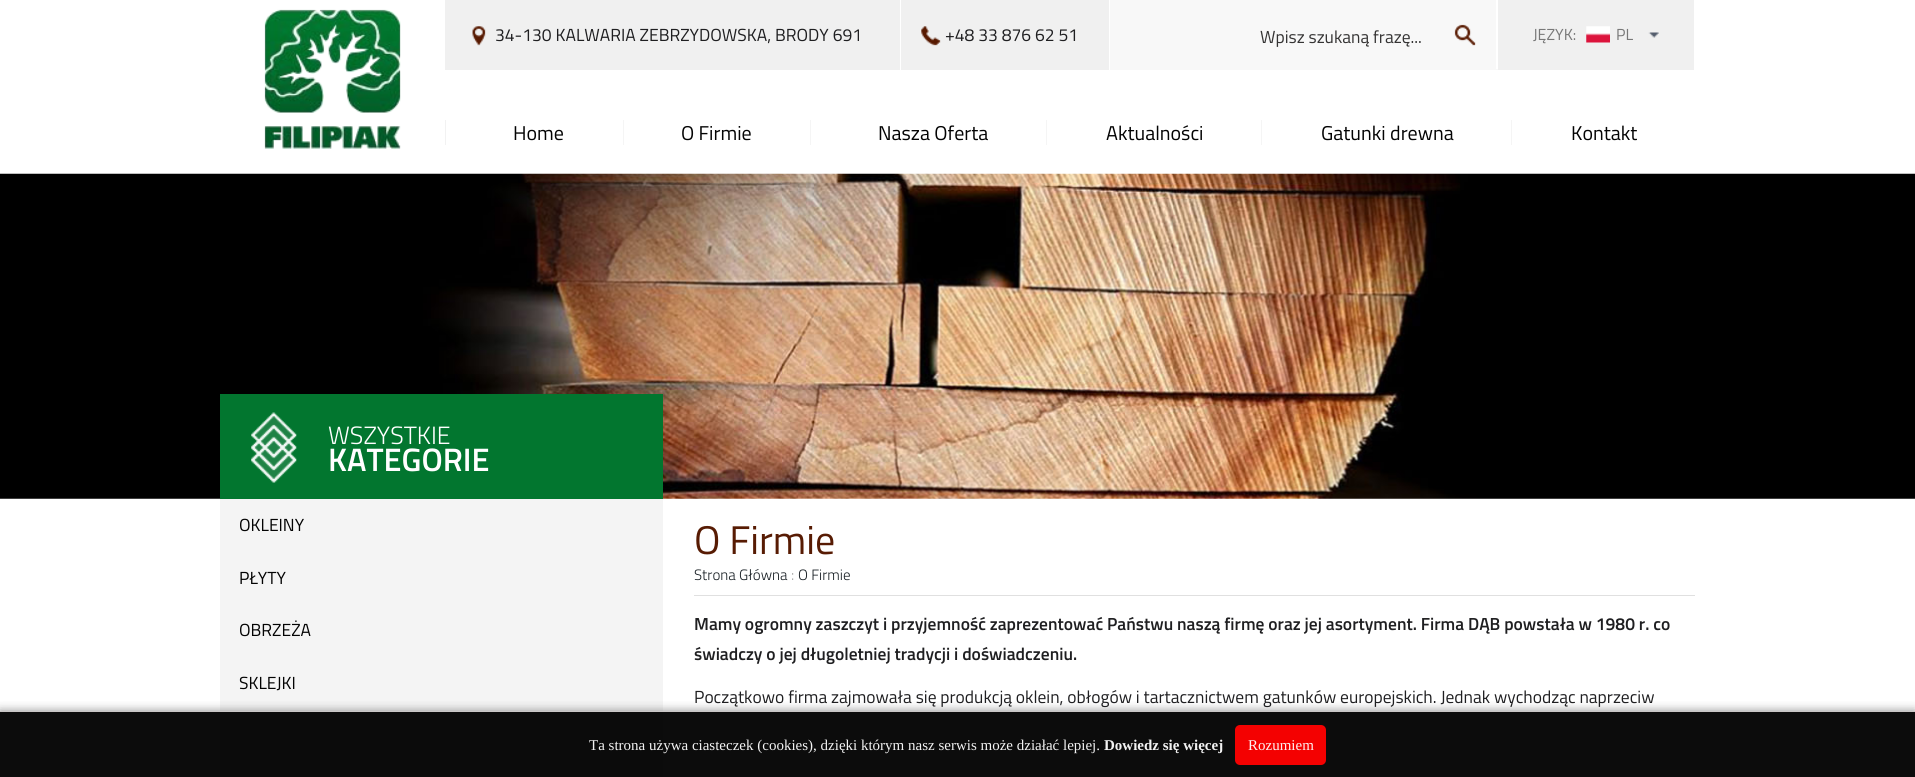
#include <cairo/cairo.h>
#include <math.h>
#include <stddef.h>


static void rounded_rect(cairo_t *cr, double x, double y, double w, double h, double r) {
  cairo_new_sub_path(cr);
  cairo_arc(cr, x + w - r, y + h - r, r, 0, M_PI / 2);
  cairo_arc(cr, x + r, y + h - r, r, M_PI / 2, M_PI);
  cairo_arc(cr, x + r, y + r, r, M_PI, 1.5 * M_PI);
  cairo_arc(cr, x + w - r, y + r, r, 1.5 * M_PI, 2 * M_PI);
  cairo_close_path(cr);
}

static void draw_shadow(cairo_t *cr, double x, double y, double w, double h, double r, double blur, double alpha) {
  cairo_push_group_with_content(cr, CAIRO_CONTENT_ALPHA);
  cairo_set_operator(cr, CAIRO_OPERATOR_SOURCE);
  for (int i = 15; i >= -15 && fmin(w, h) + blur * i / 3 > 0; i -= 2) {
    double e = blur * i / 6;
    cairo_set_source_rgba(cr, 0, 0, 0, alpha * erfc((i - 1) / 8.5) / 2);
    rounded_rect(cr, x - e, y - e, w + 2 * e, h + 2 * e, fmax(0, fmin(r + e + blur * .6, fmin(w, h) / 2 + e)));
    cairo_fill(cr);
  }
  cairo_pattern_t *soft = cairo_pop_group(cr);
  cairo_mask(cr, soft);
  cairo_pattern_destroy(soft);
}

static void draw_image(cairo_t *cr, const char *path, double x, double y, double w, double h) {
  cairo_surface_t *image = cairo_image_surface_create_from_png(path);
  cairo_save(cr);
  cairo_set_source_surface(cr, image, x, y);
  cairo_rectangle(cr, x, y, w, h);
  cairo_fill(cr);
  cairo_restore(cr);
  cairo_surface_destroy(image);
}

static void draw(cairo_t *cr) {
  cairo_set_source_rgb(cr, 1, 1, 1);
  cairo_paint(cr);
  draw_image(cr, "images/1.png", 264, 9, 137, 140);
  cairo_set_source_rgb(cr, 240 / 255.0, 240 / 255.0, 240 / 255.0);
  cairo_rectangle(cr, 445, 0, 455, 70);
  cairo_fill(cr);
  draw_image(cr, "images/2.png", 472, 26, 14, 20);
  cairo_rectangle(cr, 901, 0, 208, 70);
  cairo_fill(cr);
  draw_image(cr, "images/3.png", 921, 26, 20, 20);
  cairo_set_source_rgb(cr, 248 / 255.0, 248 / 255.0, 248 / 255.0);
  cairo_rectangle(cr, 1110, 69, 388, 1);
  cairo_fill(cr);
  cairo_rectangle(cr, 1110, 0, 386, 69);
  cairo_fill(cr);
  draw_image(cr, "images/4.png", 1454, 24, 22, 22);
  cairo_set_source_rgb(cr, 240 / 255.0, 240 / 255.0, 240 / 255.0);
  cairo_rectangle(cr, 1498, 0, 196, 70);
  cairo_fill(cr);
  draw_image(cr, "images/5.png", 1648, 32, 11, 6);
  draw_image(cr, "images/6.png", 1586, 26, 24, 17);
  cairo_set_source_rgb(cr, 242 / 255.0, 242 / 255.0, 242 / 255.0);
  cairo_rectangle(cr, 445, 120, 1, 25);
  cairo_fill(cr);
  cairo_set_source_rgb(cr, 245 / 255.0, 245 / 255.0, 245 / 255.0);
  cairo_rectangle(cr, 623, 120, 1, 25);
  cairo_fill(cr);
  cairo_rectangle(cr, 810, 120, 1, 25);
  cairo_fill(cr);
  cairo_rectangle(cr, 1046, 120, 1, 25);
  cairo_fill(cr);
  cairo_rectangle(cr, 1261, 120, 1, 25);
  cairo_fill(cr);
  cairo_rectangle(cr, 1511, 120, 1, 25);
  cairo_fill(cr);
  draw_image(cr, "images/7.png", 0, 173, 1915, 326);
  cairo_set_source_rgb(cr, 2 / 255.0, 118 / 255.0, 47 / 255.0);
  cairo_rectangle(cr, 220, 394, 443, 105);
  cairo_fill(cr);
  draw_image(cr, "images/8.png", 251, 412, 46, 71);
  cairo_set_source_rgb(cr, 244 / 255.0, 244 / 255.0, 244 / 255.0);
  cairo_rectangle(cr, 220, 499, 443, 278);
  cairo_fill(cr);
  cairo_set_source_rgb(cr, 224 / 255.0, 224 / 255.0, 224 / 255.0);
  cairo_rectangle(cr, 694, 595, 1001, 1);
  cairo_fill(cr);
  cairo_save(cr);
  cairo_rectangle(cr, 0, 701, 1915, 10);
  cairo_clip(cr);
  cairo_set_source_rgb(cr, 136 / 255.0, 136 / 255.0, 136 / 255.0);
  draw_shadow(cr, 0, 711, 1915, 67, 0, 5, 0.95);
  cairo_restore(cr);
  cairo_set_source_rgba(cr, 0, 0, 0, 0.95);
  cairo_rectangle(cr, 0, 712, 1915, 65);
  cairo_fill(cr);
  cairo_set_source_rgb(cr, 201 / 255.0, 198 / 255.0, 198 / 255.0);
  cairo_rectangle(cr, 0, 711, 1915, 1);
  cairo_fill(cr);
  cairo_set_source_rgba(cr, 1, 0, 0, 0.95);
  rounded_rect(cr, 1235, 725, 91, 40, 5);
  cairo_fill(cr);
  cairo_select_font_face(cr, "Titillium Web", CAIRO_FONT_SLANT_NORMAL, CAIRO_FONT_WEIGHT_NORMAL);
  cairo_set_font_size(cr, 17.5);
  cairo_set_source_rgb(cr, 31 / 255.0, 31 / 255.0, 33 / 255.0);
  cairo_move_to(cr, 495, 41);
  cairo_show_text(cr, "34-130 KALWARIA ZEBRZYDOWSKA, BRODY 691");
  cairo_move_to(cr, 945, 41);
  cairo_show_text(cr, "+48 33 876 62 51");
  cairo_set_source_rgb(cr, 53 / 255.0, 52 / 255.0, 52 / 255.0);
  cairo_move_to(cr, 1260, 43);
  cairo_show_text(cr, "Wpisz szukaną frazę...");
  cairo_set_font_size(cr, 16);
  cairo_set_source_rgb(cr, 120 / 255.0, 120 / 255.0, 120 / 255.0);
  cairo_move_to(cr, 1533, 40);
  cairo_show_text(cr, "JĘZYK:");
  cairo_move_to(cr, 1616, 40);
  cairo_show_text(cr, "PL");
  cairo_set_font_size(cr, 20);
  cairo_set_source_rgb(cr, 3 / 255.0, 3 / 255.0, 3 / 255.0);
  cairo_move_to(cr, 513, 140);
  cairo_show_text(cr, "Home");
  cairo_move_to(cr, 681, 140);
  cairo_show_text(cr, "O Firmie");
  cairo_move_to(cr, 878, 140);
  cairo_show_text(cr, "Nasza Oferta");
  cairo_move_to(cr, 1106, 140);
  cairo_show_text(cr, "Aktualności");
  cairo_move_to(cr, 1321, 140);
  cairo_show_text(cr, "Gatunki drewna");
  cairo_move_to(cr, 1571, 140);
  cairo_show_text(cr, "Kontakt");
  cairo_select_font_face(cr, "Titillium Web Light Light", CAIRO_FONT_SLANT_NORMAL, CAIRO_FONT_WEIGHT_NORMAL);
  cairo_set_font_size(cr, 25);
  cairo_set_source_rgb(cr, 1, 1, 1);
  cairo_move_to(cr, 328, 444);
  cairo_show_text(cr, "WSZYSTKIE");
  cairo_select_font_face(cr, "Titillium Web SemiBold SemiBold", CAIRO_FONT_SLANT_NORMAL, CAIRO_FONT_WEIGHT_NORMAL);
  cairo_set_font_size(cr, 32.5);
  cairo_move_to(cr, 328, 471);
  cairo_show_text(cr, "KATEGORIE");
  cairo_select_font_face(cr, "Titillium Web", CAIRO_FONT_SLANT_NORMAL, CAIRO_FONT_WEIGHT_NORMAL);
  cairo_set_font_size(cr, 17.5);
  cairo_set_source_rgb(cr, 3 / 255.0, 3 / 255.0, 3 / 255.0);
  cairo_move_to(cr, 239, 531);
  cairo_show_text(cr, "OKLEINY");
  cairo_move_to(cr, 239, 584);
  cairo_show_text(cr, "PŁYTY");
  cairo_move_to(cr, 239, 636);
  cairo_show_text(cr, "OBRZEŻA");
  cairo_move_to(cr, 239, 689);
  cairo_show_text(cr, "SKLEJKI");
  cairo_set_font_size(cr, 40);
  cairo_set_source_rgb(cr, 87 / 255.0, 27 / 255.0, 3 / 255.0);
  cairo_move_to(cr, 694, 554);
  cairo_show_text(cr, "O Firmie");
  cairo_select_font_face(cr, "Titillium Web Light Light", CAIRO_FONT_SLANT_NORMAL, CAIRO_FONT_WEIGHT_NORMAL);
  cairo_set_font_size(cr, 15);
  cairo_set_source_rgb(cr, 22 / 255.0, 29 / 255.0, 34 / 255.0);
  cairo_move_to(cr, 694, 580);
  cairo_show_text(cr, "Strona Główna");
  cairo_set_font_size(cr, 16);
  cairo_set_source_rgb(cr, 160 / 255.0, 160 / 255.0, 160 / 255.0);
  cairo_move_to(cr, 791, 580);
  cairo_show_text(cr, ":");
  cairo_set_font_size(cr, 15);
  cairo_set_source_rgb(cr, 22 / 255.0, 29 / 255.0, 34 / 255.0);
  cairo_move_to(cr, 798, 580);
  cairo_show_text(cr, "O Firmie");
  cairo_select_font_face(cr, "Titillium Web SemiBold SemiBold", CAIRO_FONT_SLANT_NORMAL, CAIRO_FONT_WEIGHT_NORMAL);
  cairo_set_font_size(cr, 17.5);
  cairo_set_source_rgb(cr, 31 / 255.0, 31 / 255.0, 33 / 255.0);
  cairo_move_to(cr, 694, 630);
  cairo_show_text(cr, "Mamy ogromny zaszczyt i przyjemność zaprezentować Państwu naszą firmę oraz jej asortyment. Firma DĄB powstała w 1980 r. co");
  cairo_move_to(cr, 694, 660);
  cairo_show_text(cr, "świadczy o jej długoletniej tradycji i doświadczeniu.");
  cairo_select_font_face(cr, "Titillium Web", CAIRO_FONT_SLANT_NORMAL, CAIRO_FONT_WEIGHT_NORMAL);
  cairo_move_to(cr, 694, 703);
  cairo_show_text(cr, "Początkowo firma zajmowała się produkcją oklein, obłogów i tartacznictwem gatunków europejskich. Jednak wychodząc naprzeciw");
  cairo_select_font_face(cr, "Liberation Serif", CAIRO_FONT_SLANT_NORMAL, CAIRO_FONT_WEIGHT_NORMAL);
  cairo_set_font_size(cr, 15);
  cairo_set_source_rgb(cr, 243 / 255.0, 243 / 255.0, 243 / 255.0);
  cairo_move_to(cr, 589, 750);
  cairo_show_text(cr, "Ta strona używa ciasteczek (cookies), dzięki którym nasz serwis może działać lepiej.");
  cairo_select_font_face(cr, "Liberation Serif", CAIRO_FONT_SLANT_NORMAL, CAIRO_FONT_WEIGHT_BOLD);
  cairo_move_to(cr, 1104, 750);
  cairo_show_text(cr, "Dowiedz się więcej");
  cairo_select_font_face(cr, "Liberation Serif", CAIRO_FONT_SLANT_NORMAL, CAIRO_FONT_WEIGHT_NORMAL);
  cairo_set_source_rgb(cr, 254 / 255.0, 242 / 255.0, 242 / 255.0);
  cairo_move_to(cr, 1248, 750);
  cairo_show_text(cr, "Rozumiem");
}

int main(void) {
  cairo_surface_t *surface = cairo_image_surface_create(CAIRO_FORMAT_RGB24, 1915, 777);
  cairo_t *cr = cairo_create(surface);
  cairo_font_options_t *options = cairo_font_options_create();
  cairo_font_options_set_hint_metrics(options, CAIRO_HINT_METRICS_OFF);
  cairo_font_options_set_hint_style(options, CAIRO_HINT_STYLE_NONE);
  cairo_set_font_options(cr, options);
  cairo_set_miter_limit(cr, 4);
  draw(cr);
  cairo_surface_write_to_png(surface, "out.png");
  cairo_font_options_destroy(options);
  cairo_destroy(cr);
  cairo_surface_destroy(surface);
  return 0;
}
